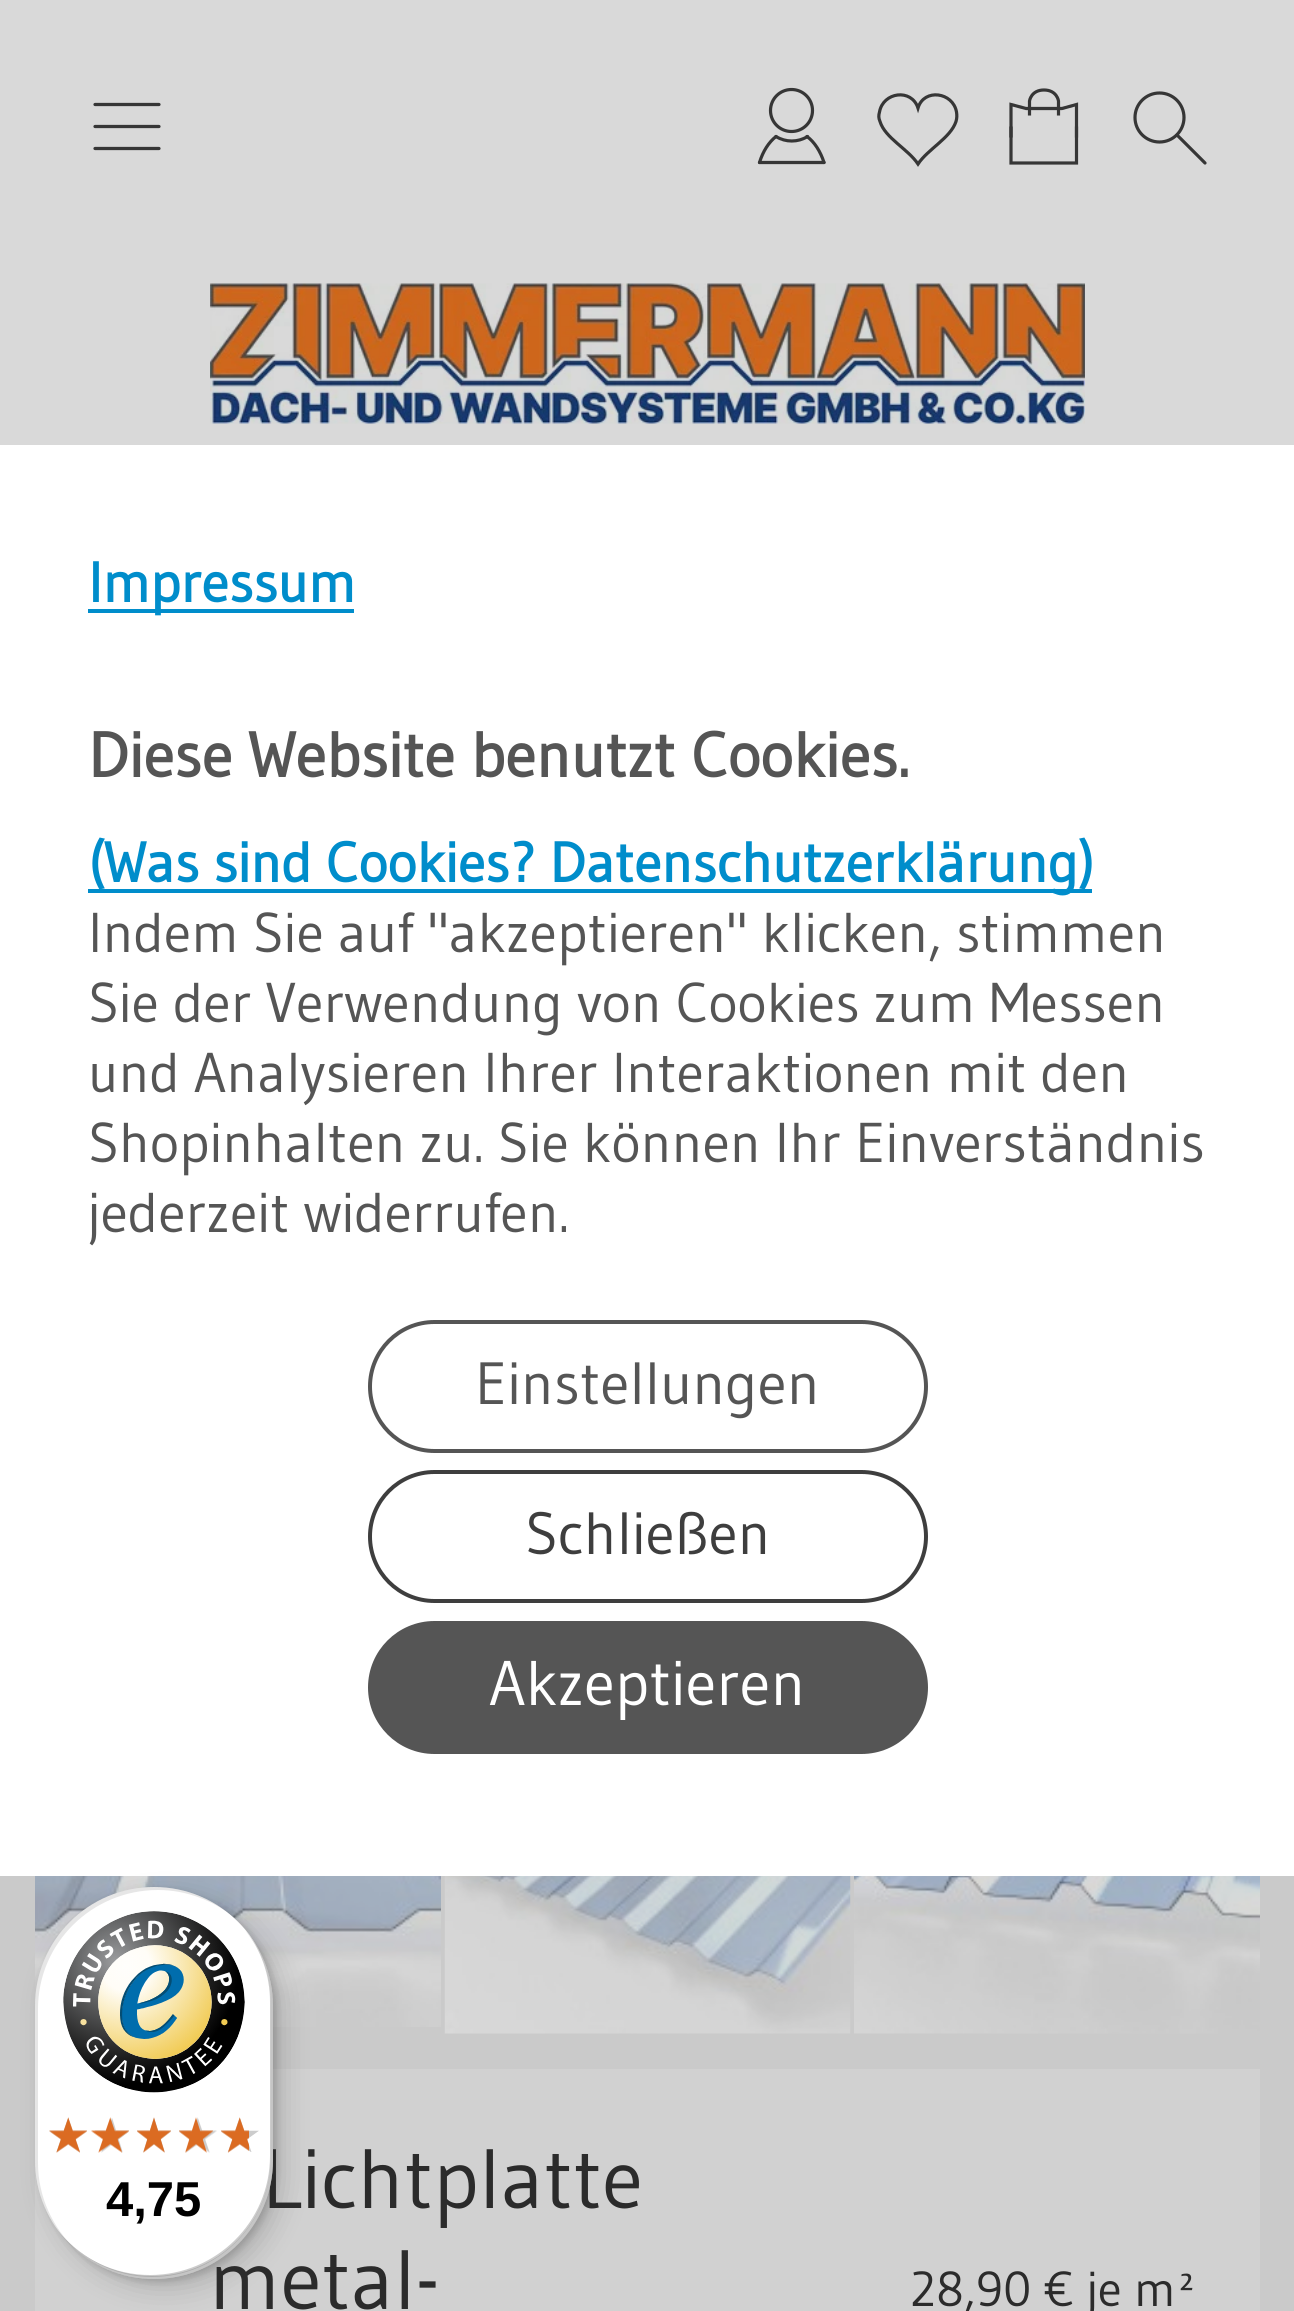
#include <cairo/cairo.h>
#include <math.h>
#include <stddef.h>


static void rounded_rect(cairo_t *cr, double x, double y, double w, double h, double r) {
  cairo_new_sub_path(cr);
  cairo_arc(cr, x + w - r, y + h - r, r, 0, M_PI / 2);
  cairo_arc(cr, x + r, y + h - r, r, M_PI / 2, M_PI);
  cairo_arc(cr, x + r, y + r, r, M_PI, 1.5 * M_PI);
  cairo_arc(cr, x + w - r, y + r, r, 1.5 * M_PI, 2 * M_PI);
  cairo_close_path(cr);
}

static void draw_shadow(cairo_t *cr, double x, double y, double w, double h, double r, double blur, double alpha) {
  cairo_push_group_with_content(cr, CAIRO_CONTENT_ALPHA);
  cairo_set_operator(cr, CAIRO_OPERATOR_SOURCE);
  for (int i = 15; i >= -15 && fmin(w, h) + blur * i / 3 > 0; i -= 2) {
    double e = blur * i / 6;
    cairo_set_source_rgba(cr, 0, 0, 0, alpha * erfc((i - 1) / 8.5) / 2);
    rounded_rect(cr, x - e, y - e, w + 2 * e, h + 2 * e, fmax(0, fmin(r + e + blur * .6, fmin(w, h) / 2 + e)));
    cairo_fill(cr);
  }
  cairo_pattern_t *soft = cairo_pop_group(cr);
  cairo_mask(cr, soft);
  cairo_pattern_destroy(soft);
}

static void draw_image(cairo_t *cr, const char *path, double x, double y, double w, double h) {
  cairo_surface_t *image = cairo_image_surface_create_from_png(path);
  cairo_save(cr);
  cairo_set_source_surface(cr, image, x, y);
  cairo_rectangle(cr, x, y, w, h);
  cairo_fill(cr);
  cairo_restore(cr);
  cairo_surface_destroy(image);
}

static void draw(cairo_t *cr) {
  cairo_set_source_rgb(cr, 202 / 255.0, 202 / 255.0, 202 / 255.0);
  cairo_paint(cr);
  cairo_set_source_rgb(cr, 1, 1, 1);
  cairo_rectangle(cr, 0, 445, 1294, 1431);
  cairo_fill(cr);
  cairo_set_source_rgb(cr, 0, 141 / 255.0, 203 / 255.0);
  cairo_rectangle(cr, 88, 609, 266, 4);
  cairo_fill(cr);
  cairo_rectangle(cr, 88, 889, 1004, 4);
  cairo_fill(cr);
  rounded_rect(cr, 370, 1322, 556, 129, 64.5);
  cairo_set_source_rgb(cr, 85 / 255.0, 85 / 255.0, 85 / 255.0);
  cairo_set_line_width(cr, 4);
  cairo_stroke(cr);
  rounded_rect(cr, 370, 1472, 556, 129, 64.5);
  cairo_set_source_rgb(cr, 62 / 255.0, 62 / 255.0, 62 / 255.0);
  cairo_stroke(cr);
  cairo_set_source_rgb(cr, 85 / 255.0, 85 / 255.0, 85 / 255.0);
  rounded_rect(cr, 370, 1623, 556, 129, 64.5);
  cairo_fill_preserve(cr);
  cairo_stroke(cr);
  draw_image(cr, "images/13.png", 35, 1876, 406, 151);
  cairo_set_source_rgb(cr, 209 / 255.0, 209 / 255.0, 209 / 255.0);
  cairo_rectangle(cr, 35, 2069, 1225, 242);
  cairo_fill(cr);
  cairo_set_source_rgb(cr, 0, 0, 0);
  draw_shadow(cr, 46, 1897, 238, 392, 119, 14, 0.15);
  draw_shadow(cr, 39, 1890, 238, 392, 119, 3.5, 0.15);
  cairo_set_source_rgb(cr, 217 / 255.0, 217 / 255.0, 217 / 255.0);
  cairo_rectangle(cr, 0, 0, 1294, 445);
  cairo_fill(cr);
  draw_image(cr, "images/12.png", 210, 283, 875, 141);
  cairo_new_path(cr);
  cairo_move_to(cr, 95, 148.5);
  cairo_line_to(cr, 159, 148.5);
  cairo_set_source_rgb(cr, 54 / 255.0, 54 / 255.0, 54 / 255.0);
  cairo_set_line_width(cr, 3.2);
  cairo_set_line_cap(cr, CAIRO_LINE_CAP_ROUND);
  cairo_stroke(cr);
  cairo_new_path(cr);
  cairo_move_to(cr, 95, 126.5);
  cairo_line_to(cr, 159, 126.5);
  cairo_stroke(cr);
  cairo_new_path(cr);
  cairo_move_to(cr, 95, 104.5);
  cairo_line_to(cr, 159, 104.5);
  cairo_stroke(cr);
  cairo_new_path(cr);
  cairo_move_to(cr, 807.5, 136.5);
  cairo_curve_to(cr, 798, 142.5, 785.5, 142.5, 776, 136.5);
  cairo_stroke(cr);
  cairo_arc(cr, 791.5, 110.5, 21, 0, 2 * M_PI);
  cairo_set_line_cap(cr, CAIRO_LINE_CAP_BUTT);
  cairo_stroke(cr);
  cairo_new_path(cr);
  cairo_move_to(cr, 807, 136.5);
  cairo_curve_to(cr, 814.5, 142, 820.5, 151.5, 824, 162.5);
  cairo_set_line_cap(cr, CAIRO_LINE_CAP_ROUND);
  cairo_stroke(cr);
  cairo_new_path(cr);
  cairo_move_to(cr, 759.5, 162.5);
  cairo_curve_to(cr, 763, 151, 769, 142, 776, 136.5);
  cairo_stroke(cr);
  cairo_new_path(cr);
  cairo_move_to(cr, 759.5, 162.5);
  cairo_line_to(cr, 824, 162.5);
  cairo_stroke(cr);
  cairo_new_path(cr);
  cairo_move_to(cr, 918, 164);
  cairo_curve_to(cr, 908, 149, 885, 138, 880, 121.5);
  cairo_curve_to(cr, 878.5, 118, 878.5, 115.5, 879.5, 112);
  cairo_curve_to(cr, 883, 92, 911.5, 88, 918, 108);
  cairo_curve_to(cr, 924, 88, 953, 92, 956.5, 112);
  cairo_curve_to(cr, 957, 115.5, 957, 118, 956, 121.5);
  cairo_curve_to(cr, 950.5, 138, 928, 149, 918, 164);
  cairo_close_path(cr);
  cairo_set_line_cap(cr, CAIRO_LINE_CAP_BUTT);
  cairo_stroke(cr);
  cairo_new_path(cr);
  cairo_move_to(cr, 1011, 126.5);
  cairo_line_to(cr, 1011, 163);
  cairo_line_to(cr, 1076.5, 163);
  cairo_line_to(cr, 1076.5, 126.5);
  cairo_stroke(cr);
  cairo_new_path(cr);
  cairo_move_to(cr, 1029.5, 115.5);
  cairo_line_to(cr, 1029.5, 101);
  cairo_curve_to(cr, 1029.5, 101, 1031, 90, 1044, 90);
  cairo_curve_to(cr, 1057, 90, 1058.5, 101, 1058.5, 101);
  cairo_line_to(cr, 1058.5, 115.5);
  cairo_stroke(cr);
  cairo_new_path(cr);
  cairo_move_to(cr, 1076.5, 137.5);
  cairo_line_to(cr, 1076.5, 104.5);
  cairo_line_to(cr, 1062, 108.5);
  cairo_line_to(cr, 1026, 108.5);
  cairo_line_to(cr, 1011, 104.5);
  cairo_line_to(cr, 1011, 137.5);
  cairo_stroke(cr);
  cairo_arc(cr, 1159.5, 117.5, 24.5, 0, 2 * M_PI);
  cairo_stroke(cr);
  cairo_new_path(cr);
  cairo_move_to(cr, 1177, 135);
  cairo_line_to(cr, 1205, 163);
  cairo_set_line_cap(cr, CAIRO_LINE_CAP_ROUND);
  cairo_stroke(cr);
  draw_image(cr, "images/14.png", 444, 1876, 407, 158);
  draw_image(cr, "images/15.png", 854, 1876, 406, 158);
  cairo_select_font_face(cr, "Gudea", CAIRO_FONT_SLANT_NORMAL, CAIRO_FONT_WEIGHT_BOLD);
  cairo_set_font_size(cr, 56);
  cairo_set_source_rgb(cr, 0, 141 / 255.0, 203 / 255.0);
  cairo_move_to(cr, 88, 602);
  cairo_show_text(cr, "Impressum");
  cairo_set_font_size(cr, 63);
  cairo_set_source_rgb(cr, 85 / 255.0, 85 / 255.0, 85 / 255.0);
  cairo_move_to(cr, 88, 777);
  cairo_show_text(cr, "Diese Website benutzt Cookies.");
  cairo_set_font_size(cr, 56);
  cairo_set_source_rgb(cr, 0, 141 / 255.0, 203 / 255.0);
  cairo_move_to(cr, 88, 882);
  cairo_show_text(cr, "(Was sind Cookies? Datenschutzerklärung)");
  cairo_select_font_face(cr, "Gudea", CAIRO_FONT_SLANT_NORMAL, CAIRO_FONT_WEIGHT_NORMAL);
  cairo_set_source_rgb(cr, 85 / 255.0, 85 / 255.0, 85 / 255.0);
  cairo_move_to(cr, 88, 952);
  cairo_show_text(cr, "Indem Sie auf \"akzeptieren\" klicken, stimmen");
  cairo_move_to(cr, 88, 1022);
  cairo_show_text(cr, "Sie der Verwendung von Cookies zum Messen");
  cairo_move_to(cr, 88, 1092);
  cairo_show_text(cr, "und Analysieren Ihrer Interaktionen mit den");
  cairo_move_to(cr, 88, 1162);
  cairo_show_text(cr, "Shopinhalten zu. Sie können Ihr Einverständnis");
  cairo_move_to(cr, 88, 1232);
  cairo_show_text(cr, "jederzeit widerrufen.");
  cairo_set_font_size(cr, 59.5);
  cairo_move_to(cr, 475, 1404);
  cairo_show_text(cr, "Einstellungen");
  cairo_set_source_rgb(cr, 62 / 255.0, 62 / 255.0, 62 / 255.0);
  cairo_move_to(cr, 525, 1554);
  cairo_show_text(cr, "Schließen");
  cairo_set_font_size(cr, 63);
  cairo_set_source_rgb(cr, 1, 1, 1);
  cairo_move_to(cr, 489, 1705);
  cairo_show_text(cr, "Akzeptieren");
  cairo_set_font_size(cr, 84);
  cairo_set_source_rgb(cr, 43 / 255.0, 43 / 255.0, 43 / 255.0);
  cairo_move_to(cr, 262, 2208);
  cairo_show_text(cr, "Lichtplatte");
  cairo_move_to(cr, 209, 2309);
  cairo_show_text(cr, "metal-");
  cairo_set_source_rgb(cr, 1, 1, 1);
  rounded_rect(cr, 35, 1887, 238, 392, 119);
  cairo_fill(cr);
  cairo_set_source_rgba(cr, 0, 0, 0, 0.1);
  cairo_new_path(cr);
  cairo_move_to(cr, 158, 1890);
  cairo_curve_to(cr, 187, 1890, 214, 1901, 235, 1918);
  cairo_curve_to(cr, 213, 1899, 185, 1887, 154, 1887);
  cairo_curve_to(cr, 88, 1887, 35, 1940, 35, 2006);
  cairo_line_to(cr, 35, 2160);
  cairo_curve_to(cr, 35, 2196, 51, 2228, 76, 2250);
  cairo_curve_to(cr, 53, 2228, 38, 2197, 38, 2163);
  cairo_line_to(cr, 38, 2009);
  cairo_curve_to(cr, 38, 1943, 92, 1890, 158, 1890);
  cairo_close_path(cr);
  cairo_fill(cr);
  cairo_set_source_rgba(cr, 0, 0, 0, 0.2);
  cairo_new_path(cr);
  cairo_move_to(cr, 60, 2233);
  cairo_curve_to(cr, 82, 2261, 116, 2279, 154, 2279);
  cairo_curve_to(cr, 220, 2279, 273, 2226, 273, 2160);
  cairo_line_to(cr, 273, 2006);
  cairo_curve_to(cr, 273, 1977, 263, 1950, 245, 1930);
  cairo_curve_to(cr, 261, 1950, 270, 1975, 270, 2002);
  cairo_line_to(cr, 270, 2156);
  cairo_curve_to(cr, 270, 2222, 216, 2275, 150, 2275);
  cairo_curve_to(cr, 114, 2275, 82, 2259, 60, 2233);
  cairo_close_path(cr);
  cairo_fill(cr);
  cairo_set_source_rgba(cr, 50 / 255.0, 50 / 255.0, 50 / 255.0, 0.2);
  cairo_new_path(cr);
  cairo_move_to(cr, 56, 2228);
  cairo_curve_to(cr, 78, 2259, 114, 2279, 154, 2279);
  cairo_curve_to(cr, 220, 2279, 273, 2226, 273, 2160);
  cairo_line_to(cr, 273, 2006);
  cairo_curve_to(cr, 273, 1980, 264, 1955, 250, 1935);
  cairo_curve_to(cr, 263, 1955, 271, 1978, 271, 2003);
  cairo_line_to(cr, 271, 2157);
  cairo_curve_to(cr, 271, 2223, 218, 2276, 152, 2276);
  cairo_curve_to(cr, 113, 2276, 78, 2257, 56, 2228);
  cairo_close_path(cr);
  cairo_fill(cr);
  cairo_set_source_rgba(cr, 1, 1, 1, 0.3);
  cairo_new_path(cr);
  cairo_move_to(cr, 59, 2231);
  cairo_curve_to(cr, 81, 2260, 115, 2279, 154, 2279);
  cairo_curve_to(cr, 220, 2279, 273, 2226, 273, 2160);
  cairo_line_to(cr, 273, 2006);
  cairo_curve_to(cr, 273, 1975, 261, 1946, 241, 1925);
  cairo_curve_to(cr, 260, 1946, 271, 1974, 271, 2004);
  cairo_line_to(cr, 271, 2158);
  cairo_curve_to(cr, 271, 2223, 218, 2277, 152, 2277);
  cairo_curve_to(cr, 115, 2277, 81, 2259, 59, 2231);
  cairo_close_path(cr);
  cairo_fill(cr);
  draw_image(cr, "images/6.png", 221, 2118, 38, 34);
  draw_image(cr, "images/11.png", 221, 2117, 28, 36);
  draw_image(cr, "images/5.png", 179, 2117, 38, 36);
  draw_image(cr, "images/10.png", 179, 2117, 34, 36);
  draw_image(cr, "images/4.png", 137, 2118, 34, 34);
  draw_image(cr, "images/9.png", 137, 2117, 34, 36);
  draw_image(cr, "images/3.png", 95, 2118, 34, 35);
  draw_image(cr, "images/8.png", 91, 2117, 38, 36);
  draw_image(cr, "images/2.png", 49, 2118, 38, 34);
  draw_image(cr, "images/7.png", 49, 2117, 38, 36);
  cairo_select_font_face(cr, "Liberation Sans", CAIRO_FONT_SLANT_NORMAL, CAIRO_FONT_WEIGHT_BOLD);
  cairo_set_font_size(cr, 49);
  cairo_set_source_rgb(cr, 0, 0, 0);
  cairo_move_to(cr, 106, 2216);
  cairo_show_text(cr, "4,75");
  draw_image(cr, "images/1.png", 63, 1911, 182, 182);
  cairo_select_font_face(cr, "Gudea", CAIRO_FONT_SLANT_NORMAL, CAIRO_FONT_WEIGHT_NORMAL);
  cairo_set_source_rgb(cr, 43 / 255.0, 43 / 255.0, 43 / 255.0);
  cairo_move_to(cr, 910, 2306);
  cairo_show_text(cr, "28,90 € je m²");
}

int main(void) {
  cairo_surface_t *surface = cairo_image_surface_create(CAIRO_FORMAT_RGB24, 1294, 2311);
  cairo_t *cr = cairo_create(surface);
  cairo_font_options_t *options = cairo_font_options_create();
  cairo_font_options_set_hint_metrics(options, CAIRO_HINT_METRICS_OFF);
  cairo_font_options_set_hint_style(options, CAIRO_HINT_STYLE_NONE);
  cairo_set_font_options(cr, options);
  cairo_set_miter_limit(cr, 4);
  draw(cr);
  cairo_surface_write_to_png(surface, "out.png");
  cairo_font_options_destroy(options);
  cairo_destroy(cr);
  cairo_surface_destroy(surface);
  return 0;
}
